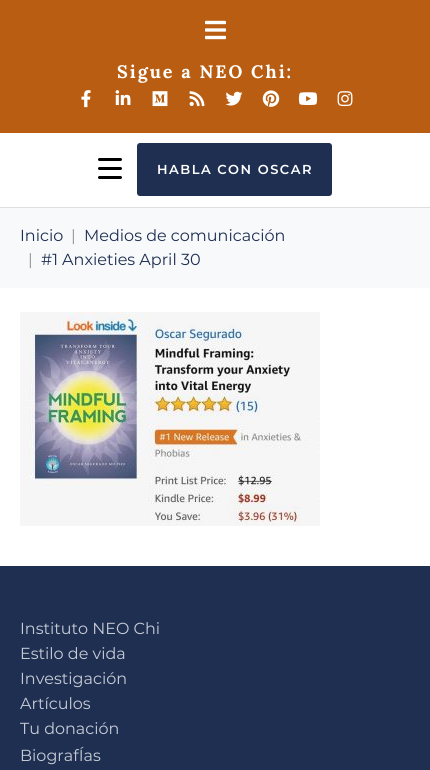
#include <cairo/cairo.h>
#include <math.h>
#include <stddef.h>


static void draw_spaced(cairo_t *cr, double x, double y, const char *s, double letter, double word) {
  cairo_move_to(cr, x, y);
  while (*s) {
    char ch[5] = {0};
    int n = 0;
    do ch[n++] = *s++; while ((*s & 0xC0) == 0x80);
    cairo_show_text(cr, ch);
    cairo_rel_move_to(cr, letter + word * (*ch == ' '), 0);
  }
}

static void rounded_rect(cairo_t *cr, double x, double y, double w, double h, double r) {
  cairo_new_sub_path(cr);
  cairo_arc(cr, x + w - r, y + h - r, r, 0, M_PI / 2);
  cairo_arc(cr, x + r, y + h - r, r, M_PI / 2, M_PI);
  cairo_arc(cr, x + r, y + r, r, M_PI, 1.5 * M_PI);
  cairo_arc(cr, x + w - r, y + r, r, 1.5 * M_PI, 2 * M_PI);
  cairo_close_path(cr);
}

static void draw_image(cairo_t *cr, const char *path, double x, double y, double w, double h) {
  cairo_surface_t *image = cairo_image_surface_create_from_png(path);
  cairo_save(cr);
  cairo_set_source_surface(cr, image, x, y);
  cairo_rectangle(cr, x, y, w, h);
  cairo_fill(cr);
  cairo_restore(cr);
  cairo_surface_destroy(image);
}

static void draw(cairo_t *cr) {
  cairo_set_source_rgb(cr, 1, 1, 1);
  cairo_paint(cr);
  cairo_set_source_rgb(cr, 184 / 255.0, 93 / 255.0, 17 / 255.0);
  cairo_rectangle(cr, 0, 0, 430, 133);
  cairo_fill(cr);
  draw_image(cr, "images/1.png", 205, 20, 21, 20);
  draw_image(cr, "images/2.png", 81, 90, 10, 18);
  draw_image(cr, "images/3.png", 115, 90, 16, 15);
  draw_image(cr, "images/4.png", 152, 91, 16, 16);
  draw_image(cr, "images/5.png", 189, 91, 16, 16);
  draw_image(cr, "images/6.png", 225, 91, 18, 15);
  draw_image(cr, "images/7.png", 262, 90, 18, 17);
  draw_image(cr, "images/8.png", 298, 92, 20, 13);
  draw_image(cr, "images/9.png", 337, 91, 16, 16);
  cairo_set_source_rgb(cr, 222 / 255.0, 222 / 255.0, 222 / 255.0);
  cairo_rectangle(cr, 0, 207, 430, 1);
  cairo_fill(cr);
  cairo_set_source_rgb(cr, 0, 0, 0);
  rounded_rect(cr, 98, 167, 24, 3, 1.5);
  cairo_fill(cr);
  rounded_rect(cr, 98, 158, 24, 3, 1.5);
  cairo_fill(cr);
  rounded_rect(cr, 98, 176, 24, 3, 1.5);
  cairo_fill(cr);
  cairo_set_source_rgb(cr, 30 / 255.0, 47 / 255.0, 82 / 255.0);
  rounded_rect(cr, 137, 143, 195, 53, 3);
  cairo_fill(cr);
  cairo_set_source_rgb(cr, 248 / 255.0, 249 / 255.0, 250 / 255.0);
  cairo_rectangle(cr, 0, 208, 430, 80);
  cairo_fill(cr);
  draw_image(cr, "images/10.png", 20, 312, 300, 214);
  cairo_set_source_rgb(cr, 30 / 255.0, 47 / 255.0, 82 / 255.0);
  cairo_rectangle(cr, 0, 566, 430, 204);
  cairo_fill(cr);
  cairo_select_font_face(cr, "Lora", CAIRO_FONT_SLANT_NORMAL, CAIRO_FONT_WEIGHT_BOLD);
  cairo_set_font_size(cr, 18);
  cairo_set_source_rgb(cr, 1, 1, 1);
  draw_spaced(cr, 117, 78, "Sigue a NEO Chi:", 2, 0);
  cairo_select_font_face(cr, "Montserrat SemiBold", CAIRO_FONT_SLANT_NORMAL, CAIRO_FONT_WEIGHT_NORMAL);
  cairo_set_font_size(cr, 13);
  draw_spaced(cr, 157, 174, "HABLA CON OSCAR", 1.5, 0);
  cairo_select_font_face(cr, "Montserrat", CAIRO_FONT_SLANT_NORMAL, CAIRO_FONT_WEIGHT_NORMAL);
  cairo_set_font_size(cr, 16);
  cairo_set_source_rgb(cr, 30 / 255.0, 47 / 255.0, 82 / 255.0);
  cairo_move_to(cr, 20, 241);
  cairo_show_text(cr, "Inicio");
  cairo_set_source_rgb(cr, 146 / 255.0, 146 / 255.0, 146 / 255.0);
  cairo_move_to(cr, 71, 241);
  cairo_show_text(cr, "|");
  cairo_set_source_rgb(cr, 30 / 255.0, 47 / 255.0, 82 / 255.0);
  cairo_move_to(cr, 84, 241);
  cairo_show_text(cr, "Medios de comunicación");
  cairo_set_source_rgb(cr, 146 / 255.0, 146 / 255.0, 146 / 255.0);
  cairo_move_to(cr, 28, 265);
  cairo_show_text(cr, "|");
  cairo_set_source_rgb(cr, 30 / 255.0, 47 / 255.0, 82 / 255.0);
  cairo_move_to(cr, 41, 265);
  cairo_show_text(cr, "#1 Anxieties April 30");
  cairo_set_source_rgb(cr, 199 / 255.0, 203 / 255.0, 212 / 255.0);
  cairo_move_to(cr, 20, 634);
  cairo_show_text(cr, "Instituto NEO Chi");
  cairo_move_to(cr, 20, 659);
  cairo_show_text(cr, "Estilo de vida");
  cairo_move_to(cr, 20, 684);
  cairo_show_text(cr, "Investigación");
  cairo_move_to(cr, 20, 709);
  cairo_show_text(cr, "Artículos");
  cairo_move_to(cr, 20, 734);
  cairo_show_text(cr, "Tu donación");
  cairo_move_to(cr, 20, 761);
  cairo_show_text(cr, "BiografÍas");
}

int main(void) {
  cairo_surface_t *surface = cairo_image_surface_create(CAIRO_FORMAT_RGB24, 430, 770);
  cairo_t *cr = cairo_create(surface);
  cairo_font_options_t *options = cairo_font_options_create();
  cairo_font_options_set_hint_metrics(options, CAIRO_HINT_METRICS_OFF);
  cairo_font_options_set_hint_style(options, CAIRO_HINT_STYLE_NONE);
  cairo_set_font_options(cr, options);
  cairo_set_miter_limit(cr, 4);
  draw(cr);
  cairo_surface_write_to_png(surface, "out.png");
  cairo_font_options_destroy(options);
  cairo_destroy(cr);
  cairo_surface_destroy(surface);
  return 0;
}
